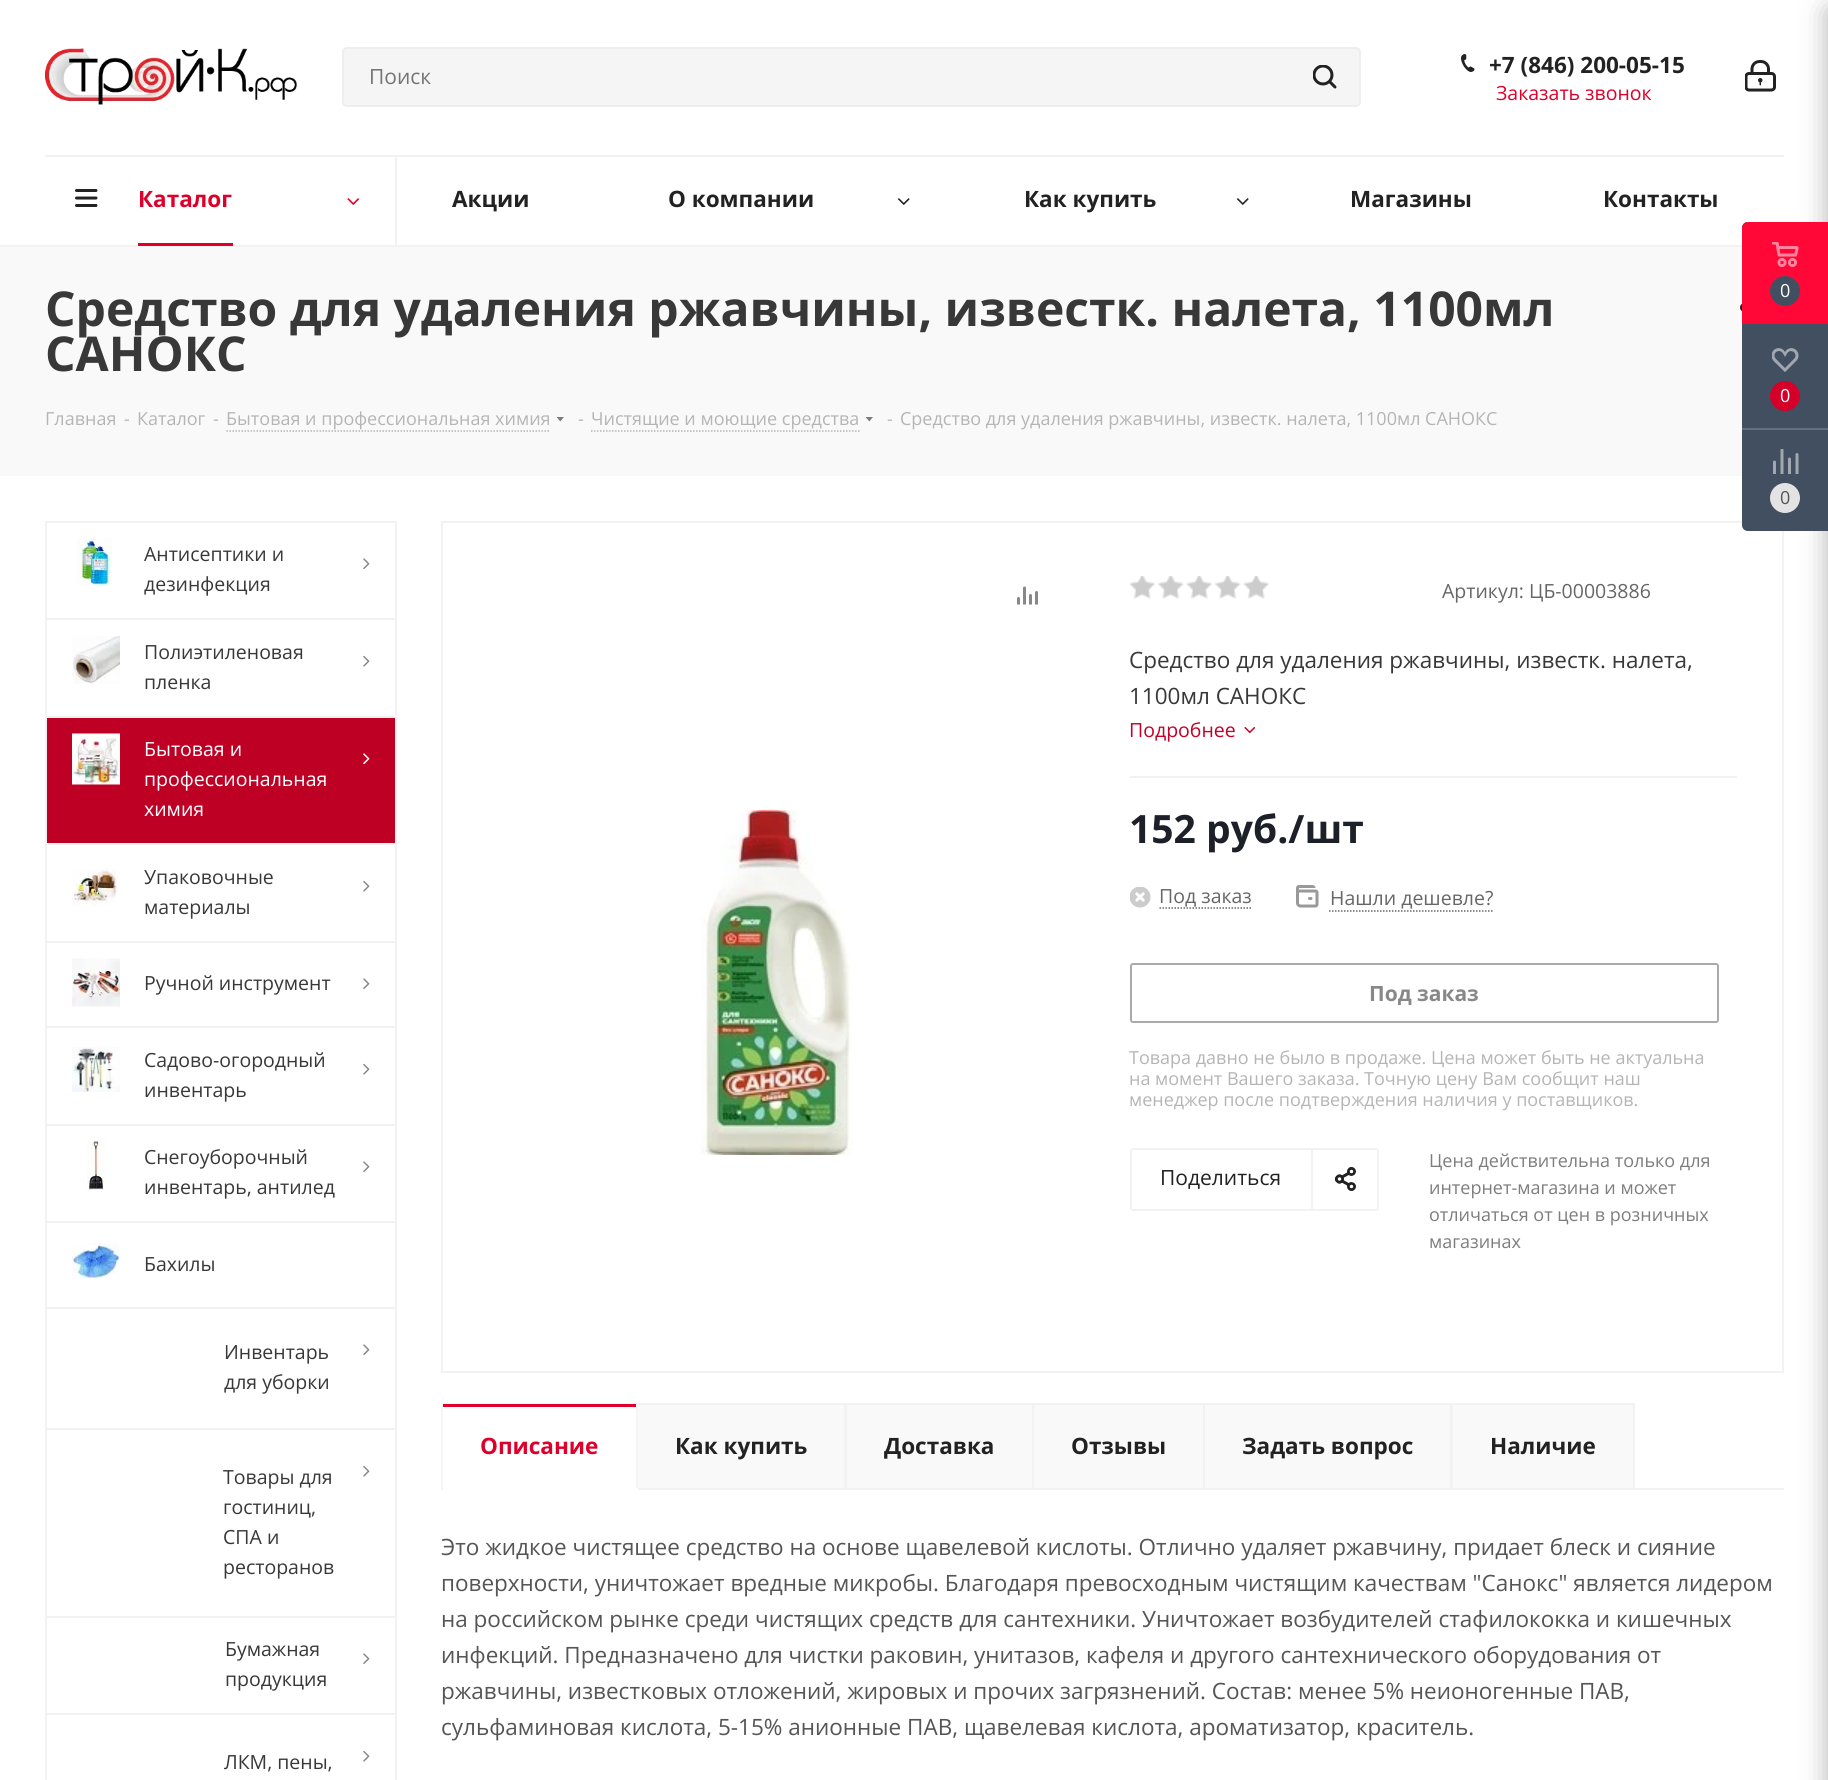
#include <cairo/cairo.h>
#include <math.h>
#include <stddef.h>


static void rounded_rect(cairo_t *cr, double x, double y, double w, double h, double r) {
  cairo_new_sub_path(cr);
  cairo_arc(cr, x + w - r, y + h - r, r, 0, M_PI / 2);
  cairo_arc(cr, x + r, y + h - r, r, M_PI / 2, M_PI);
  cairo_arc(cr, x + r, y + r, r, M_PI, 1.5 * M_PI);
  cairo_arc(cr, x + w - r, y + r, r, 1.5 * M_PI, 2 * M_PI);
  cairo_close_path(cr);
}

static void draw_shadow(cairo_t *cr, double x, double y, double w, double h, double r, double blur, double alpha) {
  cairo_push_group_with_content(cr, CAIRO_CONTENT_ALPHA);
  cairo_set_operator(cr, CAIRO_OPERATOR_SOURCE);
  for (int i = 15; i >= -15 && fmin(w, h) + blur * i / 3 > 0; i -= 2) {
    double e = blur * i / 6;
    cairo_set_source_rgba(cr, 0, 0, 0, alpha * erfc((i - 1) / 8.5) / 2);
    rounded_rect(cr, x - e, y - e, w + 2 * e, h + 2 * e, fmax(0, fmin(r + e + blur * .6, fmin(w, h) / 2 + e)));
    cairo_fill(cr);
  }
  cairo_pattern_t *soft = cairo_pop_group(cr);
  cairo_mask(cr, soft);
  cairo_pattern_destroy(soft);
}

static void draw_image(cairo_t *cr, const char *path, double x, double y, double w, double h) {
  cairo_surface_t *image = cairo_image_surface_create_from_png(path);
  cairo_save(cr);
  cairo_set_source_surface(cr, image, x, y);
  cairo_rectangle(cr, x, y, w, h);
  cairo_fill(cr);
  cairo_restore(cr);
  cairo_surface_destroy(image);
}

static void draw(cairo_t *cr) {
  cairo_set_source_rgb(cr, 1, 1, 1);
  cairo_paint(cr);
  draw_image(cr, "images/1.png", 45, 48, 252, 57);
  cairo_set_source_rgb(cr, 245 / 255.0, 245 / 255.0, 245 / 255.0);
  rounded_rect(cr, 343, 48, 1017, 58, 4);
  cairo_fill_preserve(cr);
  cairo_set_source_rgb(cr, 238 / 255.0, 238 / 255.0, 238 / 255.0);
  cairo_stroke(cr);
  draw_image(cr, "images/2.png", 1313, 65, 24, 24);
  draw_image(cr, "images/3.png", 1461, 54, 14, 18);
  draw_image(cr, "images/4.png", 1745, 60, 31, 32);
  cairo_set_source_rgb(cr, 242 / 255.0, 242 / 255.0, 242 / 255.0);
  cairo_rectangle(cr, 0, 245, 1742, 2);
  cairo_fill(cr);
  cairo_rectangle(cr, 45, 155, 1739, 2);
  cairo_fill(cr);
  cairo_rectangle(cr, 395, 156, 2, 89);
  cairo_fill(cr);
  draw_image(cr, "images/5.png", 75, 189, 23, 18);
  cairo_set_source_rgb(cr, 222 / 255.0, 0, 43 / 255.0);
  cairo_rectangle(cr, 138, 243, 95, 3);
  cairo_fill(cr);
  draw_image(cr, "images/6.png", 347, 198, 12, 7);
  draw_image(cr, "images/7.png", 898, 198, 12, 7);
  draw_image(cr, "images/7.png", 1237, 198, 12, 7);
  cairo_set_source_rgb(cr, 249 / 255.0, 249 / 255.0, 249 / 255.0);
  cairo_rectangle(cr, 0, 247, 1742, 229);
  cairo_fill(cr);
  draw_image(cr, "images/8.png", 1740, 303, 2, 9);
  cairo_new_path(cr);
  cairo_move_to(cr, 226.5, 431);
  cairo_line_to(cr, 550.5, 431);
  cairo_set_source_rgb(cr, 180 / 255.0, 180 / 255.0, 180 / 255.0);
  cairo_set_line_width(cr, 1.5);
  cairo_set_dash(cr, (double[]){1.5, 1.5}, 2, 0);
  cairo_stroke(cr);
  draw_image(cr, "images/9.png", 557, 417, 7, 5);
  cairo_new_path(cr);
  cairo_move_to(cr, 591, 431);
  cairo_line_to(cr, 859.5, 431);
  cairo_stroke(cr);
  draw_image(cr, "images/9.png", 866, 417, 7, 5);
  cairo_set_source_rgb(cr, 242 / 255.0, 242 / 255.0, 242 / 255.0);
  cairo_rectangle(cr, 45, 521, 351, 2);
  cairo_fill(cr);
  cairo_rectangle(cr, 395, 521, 2, 97);
  cairo_fill(cr);
  cairo_rectangle(cr, 45, 521, 2, 97);
  cairo_fill(cr);
  draw_image(cr, "images/10.png", 77, 538, 35, 48);
  draw_image(cr, "images/11.png", 363, 558, 7, 12);
  cairo_rectangle(cr, 45, 618, 351, 2);
  cairo_fill(cr);
  cairo_rectangle(cr, 395, 618, 2, 98);
  cairo_fill(cr);
  cairo_rectangle(cr, 45, 618, 2, 98);
  cairo_fill(cr);
  draw_image(cr, "images/12.png", 72, 636, 48, 48);
  draw_image(cr, "images/13.png", 363, 655, 7, 12);
  cairo_set_source_rgb(cr, 191 / 255.0, 0, 37 / 255.0);
  cairo_rectangle(cr, 47, 718, 348, 125);
  cairo_fill(cr);
  cairo_set_source_rgb(cr, 242 / 255.0, 242 / 255.0, 242 / 255.0);
  cairo_rectangle(cr, 45, 716, 351, 2);
  cairo_fill(cr);
  cairo_rectangle(cr, 395, 716, 2, 127);
  cairo_fill(cr);
  cairo_rectangle(cr, 45, 716, 2, 127);
  cairo_fill(cr);
  draw_image(cr, "images/14.png", 72, 733, 48, 52);
  draw_image(cr, "images/15.png", 363, 753, 7, 12);
  cairo_rectangle(cr, 45, 843, 351, 2);
  cairo_fill(cr);
  cairo_rectangle(cr, 395, 843, 2, 98);
  cairo_fill(cr);
  cairo_rectangle(cr, 45, 843, 2, 98);
  cairo_fill(cr);
  draw_image(cr, "images/16.png", 72, 869, 46, 37);
  draw_image(cr, "images/13.png", 363, 880, 7, 12);
  cairo_rectangle(cr, 45, 941, 351, 2);
  cairo_fill(cr);
  cairo_rectangle(cr, 395, 941, 2, 85);
  cairo_fill(cr);
  cairo_rectangle(cr, 45, 941, 2, 85);
  cairo_fill(cr);
  draw_image(cr, "images/17.png", 72, 958, 48, 49);
  draw_image(cr, "images/11.png", 363, 978, 7, 12);
  cairo_rectangle(cr, 45, 1026, 351, 2);
  cairo_fill(cr);
  cairo_rectangle(cr, 395, 1026, 2, 98);
  cairo_fill(cr);
  cairo_rectangle(cr, 45, 1026, 2, 98);
  cairo_fill(cr);
  draw_image(cr, "images/18.png", 72, 1047, 48, 45);
  draw_image(cr, "images/13.png", 363, 1063, 7, 12);
  cairo_rectangle(cr, 45, 1124, 351, 2);
  cairo_fill(cr);
  cairo_rectangle(cr, 395, 1124, 2, 97);
  cairo_fill(cr);
  cairo_rectangle(cr, 45, 1124, 2, 97);
  cairo_fill(cr);
  draw_image(cr, "images/19.png", 87, 1141, 18, 49);
  draw_image(cr, "images/11.png", 363, 1161, 7, 12);
  cairo_rectangle(cr, 45, 1221, 351, 2);
  cairo_fill(cr);
  cairo_rectangle(cr, 395, 1221, 2, 86);
  cairo_fill(cr);
  cairo_rectangle(cr, 45, 1221, 2, 86);
  cairo_fill(cr);
  draw_image(cr, "images/20.png", 72, 1243, 48, 36);
  cairo_rectangle(cr, 45, 1307, 351, 2);
  cairo_fill(cr);
  cairo_rectangle(cr, 395, 1307, 2, 121);
  cairo_fill(cr);
  cairo_rectangle(cr, 45, 1307, 2, 121);
  cairo_fill(cr);
  draw_image(cr, "images/11.png", 363, 1344, 7, 12);
  cairo_rectangle(cr, 45, 1428, 351, 2);
  cairo_fill(cr);
  cairo_rectangle(cr, 395, 1428, 2, 188);
  cairo_fill(cr);
  cairo_rectangle(cr, 45, 1428, 2, 188);
  cairo_fill(cr);
  draw_image(cr, "images/13.png", 363, 1465, 7, 12);
  cairo_rectangle(cr, 45, 1616, 351, 2);
  cairo_fill(cr);
  cairo_rectangle(cr, 395, 1616, 2, 97);
  cairo_fill(cr);
  cairo_rectangle(cr, 45, 1616, 2, 97);
  cairo_fill(cr);
  draw_image(cr, "images/11.png", 363, 1653, 7, 12);
  cairo_rectangle(cr, 45, 1713, 351, 2);
  cairo_fill(cr);
  cairo_rectangle(cr, 395, 1713, 2, 67);
  cairo_fill(cr);
  cairo_rectangle(cr, 45, 1713, 2, 67);
  cairo_fill(cr);
  draw_image(cr, "images/13.png", 363, 1750, 7, 12);
  cairo_rectangle(cr, 442, 522, 1341, 850);
  cairo_set_line_width(cr, 2);
  cairo_set_dash(cr, NULL, 0, 0);
  cairo_stroke(cr);
  draw_image(cr, "images/21.png", 1017, 586, 21, 19);
  draw_image(cr, "images/22.png", 701, 810, 151, 345);
  cairo_rectangle(cr, 1130, 776, 607, 2);
  cairo_fill(cr);
  draw_image(cr, "images/23.png", 1129, 576, 26, 23);
  draw_image(cr, "images/24.png", 1158, 576, 26, 23);
  draw_image(cr, "images/25.png", 1186, 576, 26, 23);
  draw_image(cr, "images/24.png", 1215, 576, 26, 23);
  draw_image(cr, "images/26.png", 1243, 576, 26, 23);
  draw_image(cr, "images/27.png", 1244, 726, 12, 8);
  draw_image(cr, "images/28.png", 1130, 887, 21, 21);
  cairo_new_path(cr);
  cairo_move_to(cr, 1159.5, 908);
  cairo_line_to(cr, 1251, 908);
  cairo_set_source_rgb(cr, 102 / 255.0, 102 / 255.0, 102 / 255.0);
  cairo_set_line_width(cr, 1.5);
  cairo_set_dash(cr, (double[]){1.5, 1.5}, 2, 0);
  cairo_stroke(cr);
  draw_image(cr, "images/29.png", 1296, 885, 23, 23);
  cairo_new_path(cr);
  cairo_move_to(cr, 1329, 911);
  cairo_line_to(cr, 1492.5, 911);
  cairo_stroke(cr);
  rounded_rect(cr, 1131, 964, 587, 58, 2);
  cairo_set_source_rgb(cr, 170 / 255.0, 170 / 255.0, 170 / 255.0);
  cairo_set_line_width(cr, 2);
  cairo_set_dash(cr, NULL, 0, 0);
  cairo_stroke(cr);
  cairo_set_source_rgb(cr, 242 / 255.0, 242 / 255.0, 242 / 255.0);
  cairo_rectangle(cr, 1311, 1148, 2, 63);
  cairo_fill(cr);
  draw_image(cr, "images/30.png", 1335, 1167, 21, 24);
  rounded_rect(cr, 1131, 1149, 247, 61, 2);
  cairo_stroke(cr);
  cairo_rectangle(cr, 1635, 1488, 149, 2);
  cairo_fill(cr);
  cairo_set_source_rgb(cr, 249 / 255.0, 249 / 255.0, 250 / 255.0);
  cairo_rectangle(cr, 637, 1404, 208, 85);
  cairo_fill_preserve(cr);
  cairo_set_source_rgb(cr, 242 / 255.0, 242 / 255.0, 242 / 255.0);
  cairo_stroke(cr);
  cairo_set_source_rgb(cr, 245 / 255.0, 245 / 255.0, 245 / 255.0);
  cairo_rectangle(cr, 441, 1403, 197, 1);
  cairo_fill(cr);
  cairo_rectangle(cr, 636, 1403, 2, 87);
  cairo_fill(cr);
  cairo_set_source_rgb(cr, 1, 1, 1);
  cairo_rectangle(cr, 636, 1488, 2, 2);
  cairo_fill(cr);
  cairo_set_source_rgb(cr, 245 / 255.0, 245 / 255.0, 245 / 255.0);
  cairo_rectangle(cr, 441, 1403, 2, 87);
  cairo_fill(cr);
  cairo_set_source_rgb(cr, 222 / 255.0, 0, 43 / 255.0);
  cairo_rectangle(cr, 443, 1404, 193, 3);
  cairo_fill(cr);
  cairo_set_source_rgb(cr, 249 / 255.0, 249 / 255.0, 250 / 255.0);
  cairo_rectangle(cr, 846, 1404, 187, 85);
  cairo_fill_preserve(cr);
  cairo_set_source_rgb(cr, 242 / 255.0, 242 / 255.0, 242 / 255.0);
  cairo_stroke(cr);
  cairo_set_source_rgb(cr, 249 / 255.0, 249 / 255.0, 250 / 255.0);
  cairo_rectangle(cr, 1033, 1404, 171, 85);
  cairo_fill_preserve(cr);
  cairo_set_source_rgb(cr, 242 / 255.0, 242 / 255.0, 242 / 255.0);
  cairo_stroke(cr);
  cairo_set_source_rgb(cr, 249 / 255.0, 249 / 255.0, 250 / 255.0);
  cairo_rectangle(cr, 1204, 1404, 247, 85);
  cairo_fill_preserve(cr);
  cairo_set_source_rgb(cr, 242 / 255.0, 242 / 255.0, 242 / 255.0);
  cairo_stroke(cr);
  cairo_set_source_rgb(cr, 249 / 255.0, 249 / 255.0, 250 / 255.0);
  cairo_rectangle(cr, 1452, 1404, 182, 85);
  cairo_fill_preserve(cr);
  cairo_set_source_rgb(cr, 242 / 255.0, 242 / 255.0, 242 / 255.0);
  cairo_stroke(cr);
  cairo_set_source_rgb(cr, 44 / 255.0, 44 / 255.0, 44 / 255.0);
  draw_shadow(cr, 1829, 9, 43, 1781, 3, 13.5, 0.4);
  cairo_set_source_rgb(cr, 66 / 255.0, 79 / 255.0, 96 / 255.0);
  cairo_new_path(cr);
  cairo_move_to(cr, 1748, 222);
  cairo_line_to(cr, 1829, 222);
  cairo_line_to(cr, 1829, 531);
  cairo_line_to(cr, 1748, 531);
  cairo_curve_to(cr, 1744.5, 531, 1742, 528.5, 1742, 525);
  cairo_line_to(cr, 1742, 228);
  cairo_curve_to(cr, 1742, 224.5, 1744.5, 222, 1748, 222);
  cairo_close_path(cr);
  cairo_fill(cr);
  cairo_set_source_rgb(cr, 1, 8 / 255.0, 56 / 255.0);
  cairo_new_path(cr);
  cairo_move_to(cr, 1748, 222);
  cairo_line_to(cr, 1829, 222);
  cairo_line_to(cr, 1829, 324);
  cairo_line_to(cr, 1742, 324);
  cairo_line_to(cr, 1742, 228);
  cairo_curve_to(cr, 1742, 224.5, 1744.5, 222, 1748, 222);
  cairo_close_path(cr);
  cairo_fill(cr);
  draw_image(cr, "images/31.png", 1772, 242, 27, 25);
  cairo_set_source_rgb(cr, 66 / 255.0, 79 / 255.0, 96 / 255.0);
  cairo_arc(cr, 1785, 291, 15, 0, 2 * M_PI);
  cairo_fill(cr);
  draw_image(cr, "images/32.png", 1772, 348, 27, 24);
  cairo_set_source_rgb(cr, 212 / 255.0, 0, 41 / 255.0);
  cairo_arc(cr, 1785, 396, 15, 0, 2 * M_PI);
  cairo_fill(cr);
  cairo_set_source_rgb(cr, 99 / 255.0, 111 / 255.0, 125 / 255.0);
  cairo_rectangle(cr, 1742, 428, 86, 2);
  cairo_fill(cr);
  draw_image(cr, "images/33.png", 1773, 449, 26, 25);
  cairo_set_source_rgb(cr, 227 / 255.0, 227 / 255.0, 227 / 255.0);
  cairo_arc(cr, 1785, 498, 15, 0, 2 * M_PI);
  cairo_fill(cr);
  cairo_select_font_face(cr, "Open Sans", CAIRO_FONT_SLANT_NORMAL, CAIRO_FONT_WEIGHT_NORMAL);
  cairo_set_font_size(cr, 21);
  cairo_set_source_rgb(cr, 117 / 255.0, 117 / 255.0, 117 / 255.0);
  cairo_move_to(cr, 369, 84);
  cairo_show_text(cr, "Поиск");
  cairo_select_font_face(cr, "Open Sans", CAIRO_FONT_SLANT_NORMAL, CAIRO_FONT_WEIGHT_BOLD);
  cairo_set_font_size(cr, 22.5);
  cairo_set_source_rgb(cr, 34 / 255.0, 34 / 255.0, 34 / 255.0);
  cairo_move_to(cr, 1489, 73);
  cairo_show_text(cr, "+7 (846) 200-05-15");
  cairo_select_font_face(cr, "Open Sans", CAIRO_FONT_SLANT_NORMAL, CAIRO_FONT_WEIGHT_NORMAL);
  cairo_set_font_size(cr, 19.5);
  cairo_set_source_rgb(cr, 222 / 255.0, 0, 43 / 255.0);
  cairo_move_to(cr, 1496, 100);
  cairo_show_text(cr, "Заказать звонок");
  cairo_select_font_face(cr, "Open Sans", CAIRO_FONT_SLANT_NORMAL, CAIRO_FONT_WEIGHT_BOLD);
  cairo_set_font_size(cr, 22.5);
  cairo_move_to(cr, 138, 207);
  cairo_show_text(cr, "Каталог");
  cairo_set_source_rgb(cr, 34 / 255.0, 34 / 255.0, 34 / 255.0);
  cairo_move_to(cr, 452, 207);
  cairo_show_text(cr, "Акции");
  cairo_move_to(cr, 668, 207);
  cairo_show_text(cr, "О компании");
  cairo_move_to(cr, 1024, 207);
  cairo_show_text(cr, "Как купить");
  cairo_move_to(cr, 1350, 207);
  cairo_show_text(cr, "Магазины");
  cairo_move_to(cr, 1603, 207);
  cairo_show_text(cr, "Контакты");
  cairo_set_font_size(cr, 48);
  cairo_set_source_rgb(cr, 56 / 255.0, 56 / 255.0, 56 / 255.0);
  cairo_move_to(cr, 45, 326);
  cairo_show_text(cr, "Средство для удаления ржавчины, известк. налета, 1100мл");
  cairo_move_to(cr, 45, 371);
  cairo_show_text(cr, "САНОКС");
  cairo_select_font_face(cr, "Open Sans", CAIRO_FONT_SLANT_NORMAL, CAIRO_FONT_WEIGHT_NORMAL);
  cairo_set_font_size(cr, 18);
  cairo_set_source_rgb(cr, 182 / 255.0, 181 / 255.0, 181 / 255.0);
  cairo_move_to(cr, 45, 425);
  cairo_show_text(cr, "Главная");
  cairo_move_to(cr, 124, 425);
  cairo_show_text(cr, "-");
  cairo_move_to(cr, 137, 425);
  cairo_show_text(cr, "Каталог");
  cairo_move_to(cr, 213, 425);
  cairo_show_text(cr, "-");
  cairo_move_to(cr, 226, 425);
  cairo_show_text(cr, "Бытовая и профессиональная химия");
  cairo_move_to(cr, 578, 425);
  cairo_show_text(cr, "-");
  cairo_move_to(cr, 591, 425);
  cairo_show_text(cr, "Чистящие и моющие средства");
  cairo_move_to(cr, 887, 425);
  cairo_show_text(cr, "-");
  cairo_move_to(cr, 900, 425);
  cairo_show_text(cr, "Средство для удаления ржавчины, известк. налета, 1100мл САНОКС");
  cairo_set_font_size(cr, 19.5);
  cairo_set_source_rgb(cr, 56 / 255.0, 56 / 255.0, 56 / 255.0);
  cairo_move_to(cr, 144, 561);
  cairo_show_text(cr, "Антисептики и");
  cairo_move_to(cr, 144, 591);
  cairo_show_text(cr, "дезинфекция");
  cairo_move_to(cr, 144, 659);
  cairo_show_text(cr, "Полиэтиленовая");
  cairo_move_to(cr, 144, 689);
  cairo_show_text(cr, "пленка");
  cairo_set_source_rgb(cr, 1, 1, 1);
  cairo_move_to(cr, 144, 756);
  cairo_show_text(cr, "Бытовая и");
  cairo_move_to(cr, 144, 786);
  cairo_show_text(cr, "профессиональная");
  cairo_move_to(cr, 144, 816);
  cairo_show_text(cr, "химия");
  cairo_set_source_rgb(cr, 56 / 255.0, 56 / 255.0, 56 / 255.0);
  cairo_move_to(cr, 144, 884);
  cairo_show_text(cr, "Упаковочные");
  cairo_move_to(cr, 144, 914);
  cairo_show_text(cr, "материалы");
  cairo_move_to(cr, 144, 990);
  cairo_show_text(cr, "Ручной инструмент");
  cairo_move_to(cr, 144, 1067);
  cairo_show_text(cr, "Садово-огородный");
  cairo_move_to(cr, 144, 1097);
  cairo_show_text(cr, "инвентарь");
  cairo_move_to(cr, 144, 1164);
  cairo_show_text(cr, "Снегоуборочный");
  cairo_move_to(cr, 144, 1194);
  cairo_show_text(cr, "инвентарь, антилед");
  cairo_move_to(cr, 144, 1271);
  cairo_show_text(cr, "Бахилы");
  cairo_move_to(cr, 224, 1359);
  cairo_show_text(cr, "Инвентарь");
  cairo_move_to(cr, 224, 1389);
  cairo_show_text(cr, "для уборки");
  cairo_move_to(cr, 223, 1484);
  cairo_show_text(cr, "Товары для");
  cairo_move_to(cr, 223, 1514);
  cairo_show_text(cr, "гостиниц,");
  cairo_move_to(cr, 223, 1544);
  cairo_show_text(cr, "СПА и");
  cairo_move_to(cr, 223, 1574);
  cairo_show_text(cr, "ресторанов");
  cairo_move_to(cr, 225, 1656);
  cairo_show_text(cr, "Бумажная");
  cairo_move_to(cr, 225, 1686);
  cairo_show_text(cr, "продукция");
  cairo_move_to(cr, 224, 1769);
  cairo_show_text(cr, "ЛКМ, пены,");
  cairo_set_source_rgb(cr, 102 / 255.0, 102 / 255.0, 102 / 255.0);
  cairo_move_to(cr, 1442, 598);
  cairo_show_text(cr, "Артикул: ЦБ-00003886");
  cairo_set_font_size(cr, 22.5);
  cairo_set_source_rgb(cr, 56 / 255.0, 56 / 255.0, 56 / 255.0);
  cairo_move_to(cr, 1129, 668);
  cairo_show_text(cr, "Средство для удаления ржавчины, известк. налета,");
  cairo_move_to(cr, 1129, 704);
  cairo_show_text(cr, "1100мл САНОКС");
  cairo_set_font_size(cr, 19.5);
  cairo_set_source_rgb(cr, 197 / 255.0, 0, 38 / 255.0);
  cairo_move_to(cr, 1129, 737);
  cairo_show_text(cr, "Подробнее");
  cairo_select_font_face(cr, "Open Sans", CAIRO_FONT_SLANT_NORMAL, CAIRO_FONT_WEIGHT_BOLD);
  cairo_set_font_size(cr, 39);
  cairo_set_source_rgb(cr, 29 / 255.0, 32 / 255.0, 41 / 255.0);
  cairo_move_to(cr, 1129, 843);
  cairo_show_text(cr, "152 руб./шт");
  cairo_select_font_face(cr, "Open Sans", CAIRO_FONT_SLANT_NORMAL, CAIRO_FONT_WEIGHT_NORMAL);
  cairo_set_font_size(cr, 19.5);
  cairo_set_source_rgb(cr, 102 / 255.0, 102 / 255.0, 102 / 255.0);
  cairo_move_to(cr, 1159, 903);
  cairo_show_text(cr, "Под заказ");
  cairo_move_to(cr, 1330, 905);
  cairo_show_text(cr, "Нашли дешевле?");
  cairo_save(cr);
  cairo_rectangle(cr, 1370, 981, 109, 24);
  cairo_clip(cr);
  cairo_select_font_face(cr, "Open Sans", CAIRO_FONT_SLANT_NORMAL, CAIRO_FONT_WEIGHT_BOLD);
  cairo_set_font_size(cr, 21);
  cairo_set_source_rgb(cr, 136 / 255.0, 136 / 255.0, 136 / 255.0);
  cairo_move_to(cr, 1369, 1001);
  cairo_show_text(cr, "Под заказ");
  cairo_restore(cr);
  cairo_set_font_size(cr, 18);
  cairo_set_source_rgb(cr, 182 / 255.0, 181 / 255.0, 181 / 255.0);
  cairo_move_to(cr, 1129, 1064);
  cairo_show_text(cr, "Товара давно не было в продаже. Цена может быть не актуальна");
  cairo_move_to(cr, 1129, 1085);
  cairo_show_text(cr, "на момент Вашего заказа. Точную цену Вам сообщит наш");
  cairo_move_to(cr, 1129, 1106);
  cairo_show_text(cr, "менеджер после подтверждения наличия у поставщиков.");
  cairo_set_font_size(cr, 21);
  cairo_set_source_rgb(cr, 34 / 255.0, 34 / 255.0, 34 / 255.0);
  cairo_move_to(cr, 1160, 1185);
  cairo_show_text(cr, "Поделиться");
  cairo_set_font_size(cr, 18);
  cairo_set_source_rgb(cr, 125 / 255.0, 125 / 255.0, 125 / 255.0);
  cairo_move_to(cr, 1429, 1167);
  cairo_show_text(cr, "Цена действительна только для");
  cairo_move_to(cr, 1429, 1194);
  cairo_show_text(cr, "интернет-магазина и может");
  cairo_move_to(cr, 1429, 1221);
  cairo_show_text(cr, "отличаться от цен в розничных");
  cairo_move_to(cr, 1429, 1248);
  cairo_show_text(cr, "магазинах");
  cairo_select_font_face(cr, "Open Sans", CAIRO_FONT_SLANT_NORMAL, CAIRO_FONT_WEIGHT_BOLD);
  cairo_set_font_size(cr, 22.5);
  cairo_set_source_rgb(cr, 222 / 255.0, 0, 43 / 255.0);
  cairo_move_to(cr, 480, 1454);
  cairo_show_text(cr, "Описание");
  cairo_set_source_rgb(cr, 34 / 255.0, 34 / 255.0, 34 / 255.0);
  cairo_move_to(cr, 675, 1454);
  cairo_show_text(cr, "Как купить");
  cairo_move_to(cr, 884, 1454);
  cairo_show_text(cr, "Доставка");
  cairo_move_to(cr, 1071, 1454);
  cairo_show_text(cr, "Отзывы");
  cairo_move_to(cr, 1242, 1454);
  cairo_show_text(cr, "Задать вопрос");
  cairo_move_to(cr, 1490, 1454);
  cairo_show_text(cr, "Наличие");
  cairo_select_font_face(cr, "Open Sans", CAIRO_FONT_SLANT_NORMAL, CAIRO_FONT_WEIGHT_NORMAL);
  cairo_set_source_rgb(cr, 85 / 255.0, 85 / 255.0, 85 / 255.0);
  cairo_move_to(cr, 441, 1555);
  cairo_show_text(cr, "Это жидкое чистящее средство на основе щавелевой кислоты. Отлично удаляет ржавчину, придает блеск и сияние");
  cairo_move_to(cr, 441, 1591);
  cairo_show_text(cr, "поверхности, уничтожает вредные микробы. Благодаря превосходным чистящим качествам \"Санокс\" является лидером");
  cairo_move_to(cr, 441, 1627);
  cairo_show_text(cr, "на российском рынке среди чистящих средств для сантехники. Уничтожает возбудителей стафилококка и кишечных");
  cairo_move_to(cr, 441, 1663);
  cairo_show_text(cr, "инфекций. Предназначено для чистки раковин, унитазов, кафеля и другого сантехнического оборудования от");
  cairo_move_to(cr, 441, 1699);
  cairo_show_text(cr, "ржавчины, известковых отложений, жировых и прочих загрязнений. Состав: менее 5% неионогенные ПАВ,");
  cairo_move_to(cr, 441, 1735);
  cairo_show_text(cr, "сульфаминовая кислота, 5-15% анионные ПАВ, щавелевая кислота, ароматизатор, краситель.");
  cairo_set_font_size(cr, 18);
  cairo_set_source_rgb(cr, 1, 1, 1);
  cairo_move_to(cr, 1780, 297);
  cairo_show_text(cr, "0");
  cairo_move_to(cr, 1780, 402);
  cairo_show_text(cr, "0");
  cairo_set_source_rgb(cr, 85 / 255.0, 85 / 255.0, 85 / 255.0);
  cairo_move_to(cr, 1780, 504);
  cairo_show_text(cr, "0");
}

int main(void) {
  cairo_surface_t *surface = cairo_image_surface_create(CAIRO_FORMAT_RGB24, 1828, 1780);
  cairo_t *cr = cairo_create(surface);
  cairo_font_options_t *options = cairo_font_options_create();
  cairo_font_options_set_hint_metrics(options, CAIRO_HINT_METRICS_OFF);
  cairo_font_options_set_hint_style(options, CAIRO_HINT_STYLE_NONE);
  cairo_set_font_options(cr, options);
  cairo_set_miter_limit(cr, 4);
  draw(cr);
  cairo_surface_write_to_png(surface, "out.png");
  cairo_font_options_destroy(options);
  cairo_destroy(cr);
  cairo_surface_destroy(surface);
  return 0;
}
